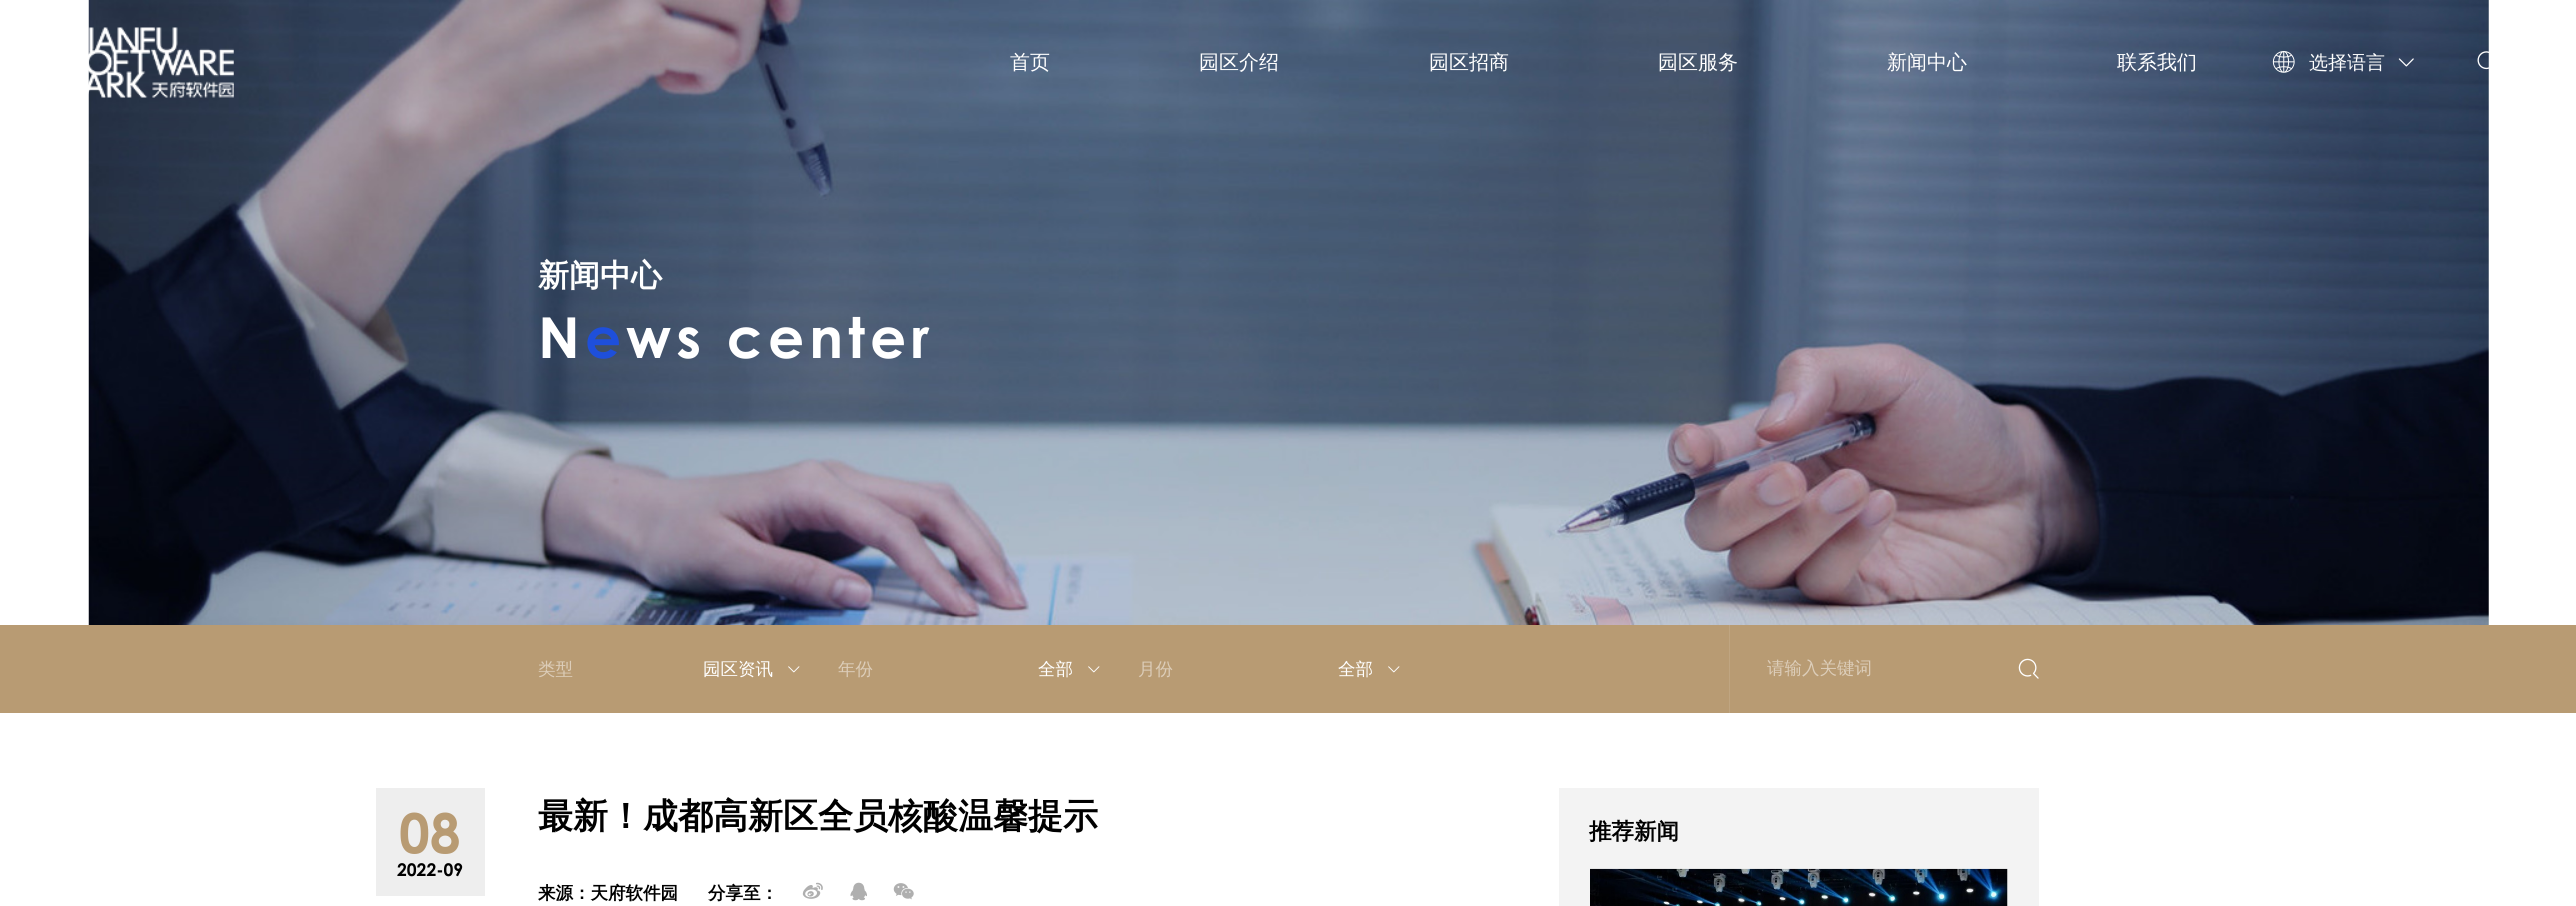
#include <cairo/cairo.h>
#include <math.h>
#include <stddef.h>


static void draw_spaced(cairo_t *cr, double x, double y, const char *s, double letter, double word) {
  cairo_move_to(cr, x, y);
  while (*s) {
    char ch[5] = {0};
    int n = 0;
    do ch[n++] = *s++; while ((*s & 0xC0) == 0x80);
    cairo_show_text(cr, ch);
    cairo_rel_move_to(cr, letter + word * (*ch == ' '), 0);
  }
}

static void draw_image(cairo_t *cr, const char *path, double x, double y, double w, double h) {
  cairo_surface_t *image = cairo_image_surface_create_from_png(path);
  cairo_save(cr);
  cairo_set_source_surface(cr, image, x, y);
  cairo_rectangle(cr, x, y, w, h);
  cairo_fill(cr);
  cairo_restore(cr);
  cairo_surface_destroy(image);
}

static void draw(cairo_t *cr) {
  cairo_set_source_rgb(cr, 1, 1, 1);
  cairo_paint(cr);
  draw_image(cr, "images/5.png", 88, 0, 2401, 625);
  draw_image(cr, "images/1.png", 88, 27, 146, 71);
  draw_image(cr, "images/2.png", 2272, 51, 23, 22);
  draw_image(cr, "images/3.png", 2398, 58, 16, 9);
  draw_image(cr, "images/4.png", 2477, 51, 12, 19);
  cairo_set_source_rgb(cr, 184 / 255.0, 155 / 255.0, 115 / 255.0);
  cairo_rectangle(cr, 0, 625, 2576, 88);
  cairo_fill(cr);
  draw_image(cr, "images/6.png", 788, 666, 12, 7);
  draw_image(cr, "images/6.png", 1088, 666, 12, 7);
  draw_image(cr, "images/6.png", 1388, 666, 12, 7);
  cairo_set_source_rgb(cr, 191 / 255.0, 165 / 255.0, 129 / 255.0);
  cairo_rectangle(cr, 1729, 625, 1, 88);
  cairo_fill(cr);
  draw_image(cr, "images/7.png", 2018, 658, 21, 21);
  cairo_set_source_rgb(cr, 238 / 255.0, 238 / 255.0, 238 / 255.0);
  cairo_rectangle(cr, 376, 788, 109, 108);
  cairo_fill(cr);
  draw_image(cr, "images/8.png", 802, 882, 21, 17);
  draw_image(cr, "images/9.png", 850, 882, 17, 19);
  draw_image(cr, "images/10.png", 893, 883, 21, 17);
  cairo_set_source_rgb(cr, 243 / 255.0, 243 / 255.0, 243 / 255.0);
  cairo_rectangle(cr, 1559, 788, 480, 118);
  cairo_fill(cr);
  draw_image(cr, "images/11.png", 1590, 868, 418, 38);
  cairo_select_font_face(cr, "WenQuanYi Zen Hei Medium", CAIRO_FONT_SLANT_NORMAL, CAIRO_FONT_WEIGHT_NORMAL);
  cairo_set_font_size(cr, 20);
  cairo_set_source_rgb(cr, 1, 1, 1);
  cairo_move_to(cr, 1010, 69);
  cairo_show_text(cr, "首页");
  cairo_move_to(cr, 1199, 69);
  cairo_show_text(cr, "园区介绍");
  cairo_move_to(cr, 1429, 69);
  cairo_show_text(cr, "园区招商");
  cairo_move_to(cr, 1658, 69);
  cairo_show_text(cr, "园区服务");
  cairo_move_to(cr, 1887, 69);
  cairo_show_text(cr, "新闻中心");
  cairo_move_to(cr, 2117, 69);
  cairo_show_text(cr, "联系我们");
  cairo_set_font_size(cr, 19);
  cairo_move_to(cr, 2309, 69);
  cairo_show_text(cr, "选择语言");
  cairo_select_font_face(cr, "WenQuanYi Zen Hei", CAIRO_FONT_SLANT_NORMAL, CAIRO_FONT_WEIGHT_BOLD);
  cairo_set_font_size(cr, 31);
  cairo_move_to(cr, 538, 286);
  cairo_show_text(cr, "新闻中心");
  cairo_select_font_face(cr, "Century Gothic", CAIRO_FONT_SLANT_NORMAL, CAIRO_FONT_WEIGHT_BOLD);
  cairo_set_font_size(cr, 56.5);
  draw_spaced(cr, 538, 358, "N", 5, 0);
  cairo_set_source_rgb(cr, 30 / 255.0, 79 / 255.0, 219 / 255.0);
  draw_spaced(cr, 585, 358, "e", 5, 0);
  cairo_set_source_rgb(cr, 1, 1, 1);
  draw_spaced(cr, 626, 358, "ws center", 5, 0);
  cairo_select_font_face(cr, "WenQuanYi Zen Hei Medium", CAIRO_FONT_SLANT_NORMAL, CAIRO_FONT_WEIGHT_NORMAL);
  cairo_set_font_size(cr, 17.5);
  cairo_set_source_rgb(cr, 220 / 255.0, 205 / 255.0, 185 / 255.0);
  cairo_move_to(cr, 538, 675);
  cairo_show_text(cr, "类型");
  cairo_set_source_rgb(cr, 1, 1, 1);
  cairo_move_to(cr, 703, 675);
  cairo_show_text(cr, "园区资讯");
  cairo_set_source_rgb(cr, 220 / 255.0, 205 / 255.0, 185 / 255.0);
  cairo_move_to(cr, 838, 675);
  cairo_show_text(cr, "年份");
  cairo_set_source_rgb(cr, 1, 1, 1);
  cairo_move_to(cr, 1038, 675);
  cairo_show_text(cr, "全部");
  cairo_set_source_rgb(cr, 220 / 255.0, 205 / 255.0, 185 / 255.0);
  cairo_move_to(cr, 1138, 675);
  cairo_show_text(cr, "月份");
  cairo_set_source_rgb(cr, 1, 1, 1);
  cairo_move_to(cr, 1338, 675);
  cairo_show_text(cr, "全部");
  cairo_set_source_rgb(cr, 220 / 255.0, 205 / 255.0, 185 / 255.0);
  cairo_move_to(cr, 1767, 674);
  cairo_show_text(cr, "请输入关键词");
  cairo_select_font_face(cr, "Century Gothic", CAIRO_FONT_SLANT_NORMAL, CAIRO_FONT_WEIGHT_BOLD);
  cairo_set_font_size(cr, 55);
  cairo_set_source_rgb(cr, 184 / 255.0, 155 / 255.0, 115 / 255.0);
  cairo_move_to(cr, 399, 853);
  cairo_show_text(cr, "08");
  cairo_set_font_size(cr, 17.5);
  cairo_set_source_rgb(cr, 0, 0, 0);
  cairo_move_to(cr, 397, 876);
  cairo_show_text(cr, "2022-09");
  cairo_select_font_face(cr, "WenQuanYi Zen Hei", CAIRO_FONT_SLANT_NORMAL, CAIRO_FONT_WEIGHT_BOLD);
  cairo_set_font_size(cr, 35);
  cairo_move_to(cr, 538, 828);
  cairo_show_text(cr, "最新！成都高新区全员核酸温馨提示");
  cairo_set_font_size(cr, 17.5);
  cairo_move_to(cr, 538, 899);
  cairo_show_text(cr, "来源：天府软件园");
  cairo_move_to(cr, 708, 899);
  cairo_show_text(cr, "分享至：");
  cairo_set_font_size(cr, 22.5);
  cairo_move_to(cr, 1589, 839);
  cairo_show_text(cr, "推荐新闻");
}

int main(void) {
  cairo_surface_t *surface = cairo_image_surface_create(CAIRO_FORMAT_RGB24, 2576, 906);
  cairo_t *cr = cairo_create(surface);
  cairo_font_options_t *options = cairo_font_options_create();
  cairo_font_options_set_hint_metrics(options, CAIRO_HINT_METRICS_OFF);
  cairo_font_options_set_hint_style(options, CAIRO_HINT_STYLE_NONE);
  cairo_set_font_options(cr, options);
  cairo_set_miter_limit(cr, 4);
  draw(cr);
  cairo_surface_write_to_png(surface, "out.png");
  cairo_font_options_destroy(options);
  cairo_destroy(cr);
  cairo_surface_destroy(surface);
  return 0;
}
